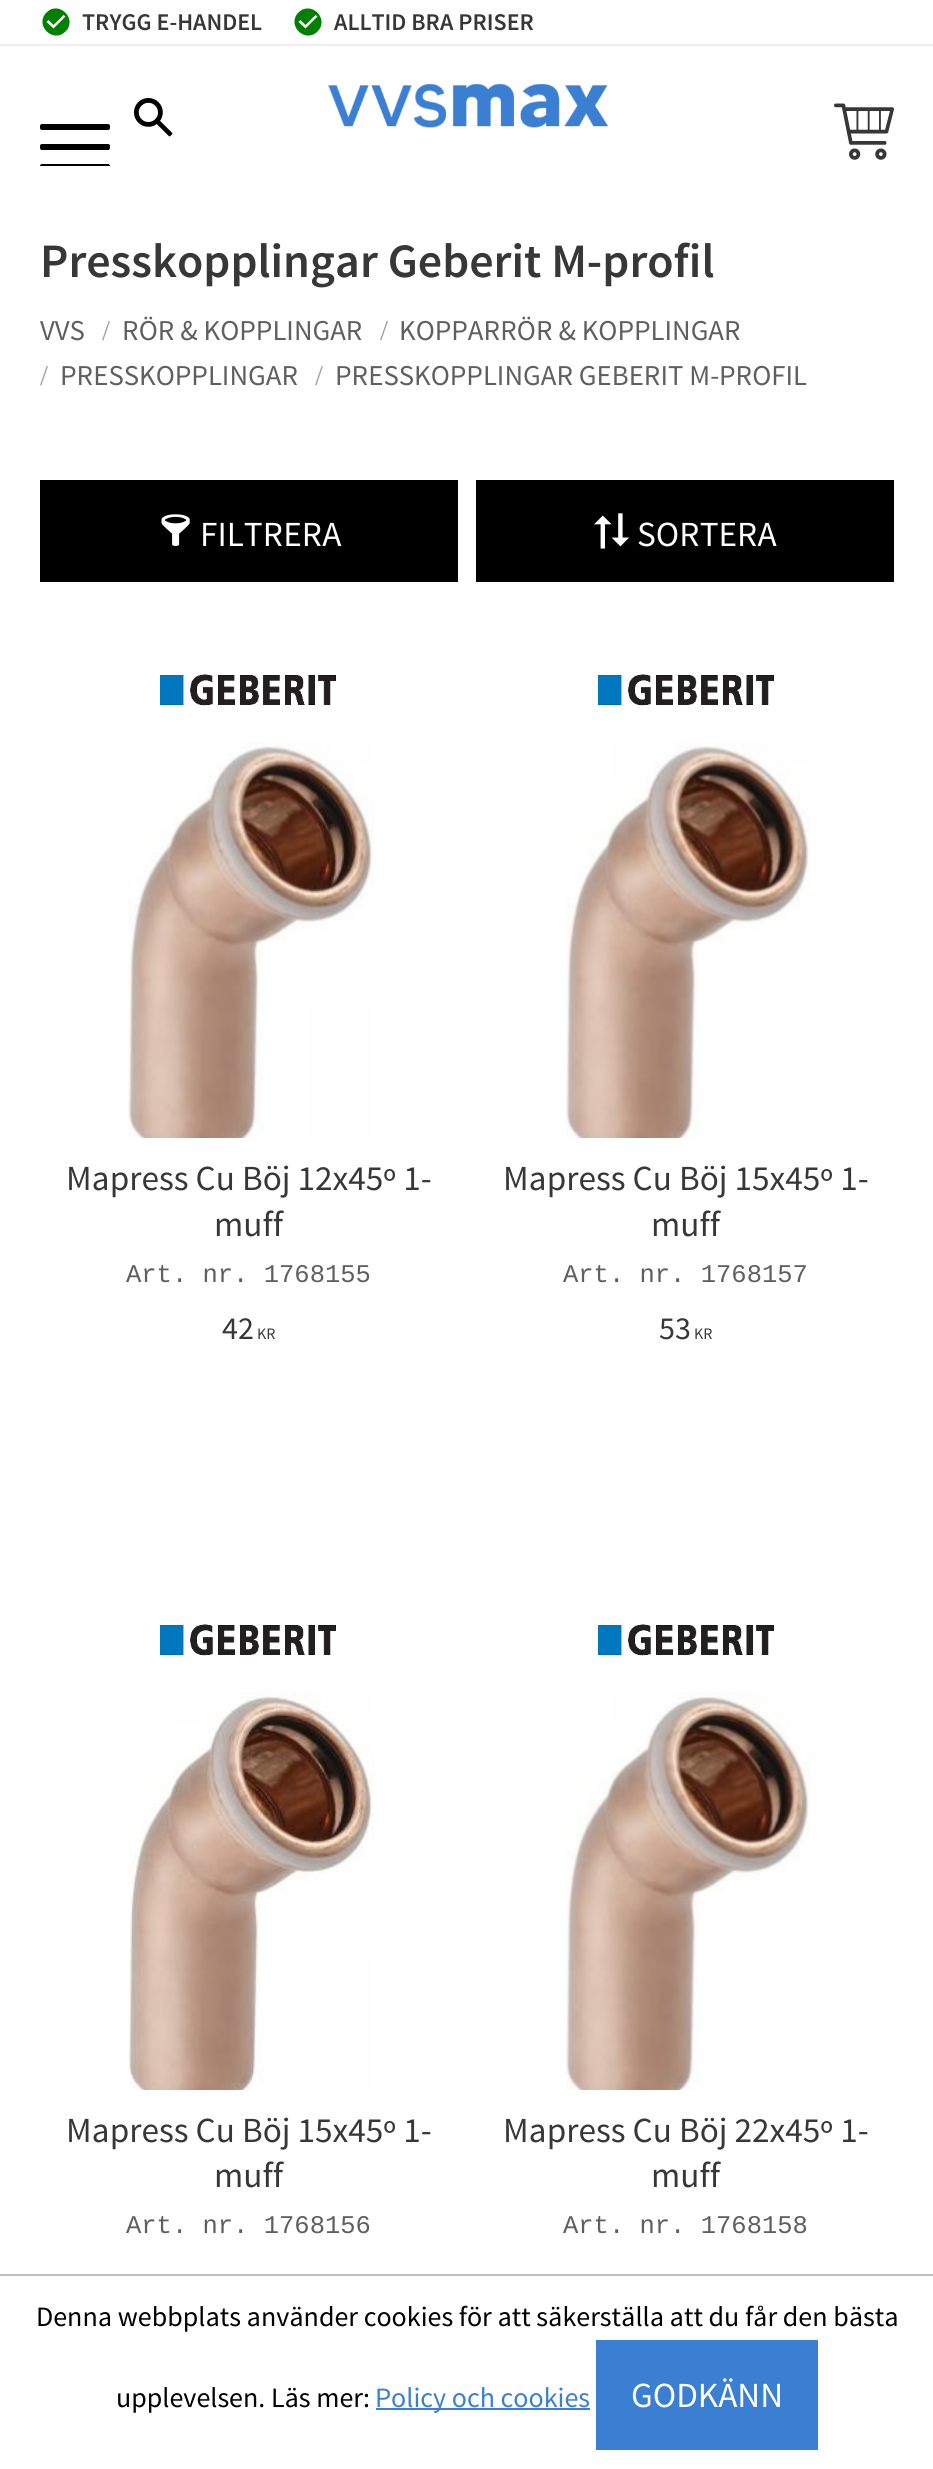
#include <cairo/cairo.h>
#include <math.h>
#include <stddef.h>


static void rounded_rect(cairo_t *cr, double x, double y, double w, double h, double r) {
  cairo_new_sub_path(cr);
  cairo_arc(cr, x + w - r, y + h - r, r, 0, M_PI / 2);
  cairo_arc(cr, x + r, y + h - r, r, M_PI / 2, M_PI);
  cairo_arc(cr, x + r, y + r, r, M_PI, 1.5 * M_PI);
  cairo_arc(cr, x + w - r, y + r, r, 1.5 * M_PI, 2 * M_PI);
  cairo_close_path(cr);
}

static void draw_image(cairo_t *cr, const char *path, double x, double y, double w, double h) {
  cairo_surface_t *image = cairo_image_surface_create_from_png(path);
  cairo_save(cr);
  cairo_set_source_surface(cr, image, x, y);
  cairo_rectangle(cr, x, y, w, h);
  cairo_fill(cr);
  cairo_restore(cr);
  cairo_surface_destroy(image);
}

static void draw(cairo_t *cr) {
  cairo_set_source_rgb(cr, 1, 1, 1);
  cairo_paint(cr);
  cairo_set_source_rgb(cr, 238 / 255.0, 238 / 255.0, 238 / 255.0);
  cairo_rectangle(cr, 0, 44, 933, 2);
  cairo_fill(cr);
  cairo_set_source_rgb(cr, 0, 128 / 255.0, 0);
  cairo_new_path(cr);
  cairo_move_to(cr, 53.5, 28.5);
  cairo_line_to(cr, 65.5, 16.5);
  cairo_line_to(cr, 63.5, 15);
  cairo_line_to(cr, 53.5, 25);
  cairo_line_to(cr, 48.5, 20);
  cairo_line_to(cr, 46.5, 22);
  cairo_close_path(cr);
  cairo_move_to(cr, 46.5, 12.5);
  cairo_curve_to(cr, 59, 0, 78, 19, 65.5, 31.5);
  cairo_curve_to(cr, 53, 44, 34, 25, 46.5, 12.5);
  cairo_close_path(cr);
  cairo_fill(cr);
  cairo_new_path(cr);
  cairo_move_to(cr, 305.5, 28.5);
  cairo_line_to(cr, 317.5, 16.5);
  cairo_line_to(cr, 315.5, 15);
  cairo_line_to(cr, 305.5, 25);
  cairo_line_to(cr, 300.5, 20);
  cairo_line_to(cr, 298.5, 22);
  cairo_close_path(cr);
  cairo_move_to(cr, 298.5, 12.5);
  cairo_curve_to(cr, 311, 0, 330, 19, 317.5, 31.5);
  cairo_curve_to(cr, 305, 44, 286, 25, 298.5, 12.5);
  cairo_close_path(cr);
  cairo_fill(cr);
  cairo_set_source_rgb(cr, 0, 0, 0);
  rounded_rect(cr, 40, 164, 70, 6, 2);
  cairo_fill(cr);
  cairo_set_source_rgb(cr, 1, 1, 1);
  cairo_rectangle(cr, 40, 166, 70, 4);
  cairo_fill(cr);
  draw_image(cr, "images/1.png", 134, 98, 39, 39);
  draw_image(cr, "images/2.png", 328, 83, 281, 45);
  draw_image(cr, "images/3.png", 834, 103, 60, 57);
  cairo_set_source_rgb(cr, 0, 0, 0);
  rounded_rect(cr, 40, 144, 70, 6, 2);
  cairo_fill(cr);
  rounded_rect(cr, 40, 124, 70, 6, 2);
  cairo_fill(cr);
  cairo_rectangle(cr, 40, 480, 418, 102);
  cairo_fill(cr);
  draw_image(cr, "images/4.png", 161, 514, 29, 32);
  cairo_rectangle(cr, 476, 480, 418, 102);
  cairo_fill(cr);
  draw_image(cr, "images/5.png", 594, 513, 36, 36);
  draw_image(cr, "images/6.png", 160, 674, 176, 32);
  draw_image(cr, "images/7.png", 128, 742, 246, 396);
  draw_image(cr, "images/6.png", 598, 674, 176, 32);
  draw_image(cr, "images/8.png", 566, 742, 245, 396);
  draw_image(cr, "images/6.png", 160, 1624, 176, 32);
  draw_image(cr, "images/9.png", 129, 1692, 245, 398);
  draw_image(cr, "images/6.png", 598, 1624, 176, 32);
  draw_image(cr, "images/10.png", 566, 1692, 245, 398);
  cairo_set_source_rgb(cr, 190 / 255.0, 190 / 255.0, 190 / 255.0);
  cairo_rectangle(cr, 0, 2274, 933, 2);
  cairo_fill(cr);
  cairo_set_source_rgb(cr, 59 / 255.0, 127 / 255.0, 211 / 255.0);
  cairo_rectangle(cr, 376, 2408, 214, 2);
  cairo_fill(cr);
  cairo_rectangle(cr, 596, 2340, 222, 110);
  cairo_fill(cr);
  cairo_select_font_face(cr, "Source Sans Pro SemiBold", CAIRO_FONT_SLANT_NORMAL, CAIRO_FONT_WEIGHT_NORMAL);
  cairo_set_font_size(cr, 24);
  cairo_set_source_rgb(cr, 55 / 255.0, 55 / 255.0, 55 / 255.0);
  cairo_move_to(cr, 82, 30);
  cairo_show_text(cr, "TRYGG E-HANDEL");
  cairo_move_to(cr, 334, 30);
  cairo_show_text(cr, "ALLTID BRA PRISER");
  cairo_set_font_size(cr, 48);
  cairo_move_to(cr, 40, 277);
  cairo_show_text(cr, "Presskopplingar Geberit M-profil");
  cairo_select_font_face(cr, "Source Sans Pro", CAIRO_FONT_SLANT_NORMAL, CAIRO_FONT_WEIGHT_NORMAL);
  cairo_set_font_size(cr, 28.75);
  cairo_set_source_rgb(cr, 95 / 255.0, 95 / 255.0, 95 / 255.0);
  cairo_move_to(cr, 40, 340);
  cairo_show_text(cr, "VVS");
  cairo_select_font_face(cr, "Liberation Serif", CAIRO_FONT_SLANT_NORMAL, CAIRO_FONT_WEIGHT_NORMAL);
  cairo_set_source_rgb(cr, 159 / 255.0, 159 / 255.0, 159 / 255.0);
  cairo_move_to(cr, 102, 340);
  cairo_show_text(cr, "/");
  cairo_select_font_face(cr, "Source Sans Pro", CAIRO_FONT_SLANT_NORMAL, CAIRO_FONT_WEIGHT_NORMAL);
  cairo_set_source_rgb(cr, 95 / 255.0, 95 / 255.0, 95 / 255.0);
  cairo_move_to(cr, 122, 340);
  cairo_show_text(cr, "RÖR & KOPPLINGAR");
  cairo_select_font_face(cr, "Liberation Serif", CAIRO_FONT_SLANT_NORMAL, CAIRO_FONT_WEIGHT_NORMAL);
  cairo_set_source_rgb(cr, 159 / 255.0, 159 / 255.0, 159 / 255.0);
  cairo_move_to(cr, 380, 340);
  cairo_show_text(cr, "/");
  cairo_select_font_face(cr, "Source Sans Pro", CAIRO_FONT_SLANT_NORMAL, CAIRO_FONT_WEIGHT_NORMAL);
  cairo_set_source_rgb(cr, 95 / 255.0, 95 / 255.0, 95 / 255.0);
  cairo_move_to(cr, 399, 340);
  cairo_show_text(cr, "KOPPARRÖR & KOPPLINGAR");
  cairo_select_font_face(cr, "Liberation Serif", CAIRO_FONT_SLANT_NORMAL, CAIRO_FONT_WEIGHT_NORMAL);
  cairo_set_source_rgb(cr, 159 / 255.0, 159 / 255.0, 159 / 255.0);
  cairo_move_to(cr, 40, 385);
  cairo_show_text(cr, "/");
  cairo_select_font_face(cr, "Source Sans Pro", CAIRO_FONT_SLANT_NORMAL, CAIRO_FONT_WEIGHT_NORMAL);
  cairo_set_source_rgb(cr, 95 / 255.0, 95 / 255.0, 95 / 255.0);
  cairo_move_to(cr, 60, 385);
  cairo_show_text(cr, "PRESSKOPPLINGAR");
  cairo_select_font_face(cr, "Liberation Serif", CAIRO_FONT_SLANT_NORMAL, CAIRO_FONT_WEIGHT_NORMAL);
  cairo_set_source_rgb(cr, 159 / 255.0, 159 / 255.0, 159 / 255.0);
  cairo_move_to(cr, 315, 385);
  cairo_show_text(cr, "/");
  cairo_select_font_face(cr, "Source Sans Pro", CAIRO_FONT_SLANT_NORMAL, CAIRO_FONT_WEIGHT_NORMAL);
  cairo_set_source_rgb(cr, 95 / 255.0, 95 / 255.0, 95 / 255.0);
  cairo_move_to(cr, 335, 385);
  cairo_show_text(cr, "PRESSKOPPLINGAR GEBERIT M-PROFIL");
  cairo_set_font_size(cr, 35.25);
  cairo_set_source_rgb(cr, 1, 1, 1);
  cairo_move_to(cr, 200, 546);
  cairo_show_text(cr, "FILTRERA");
  cairo_move_to(cr, 637, 546);
  cairo_show_text(cr, "SORTERA");
  cairo_set_source_rgb(cr, 55 / 255.0, 55 / 255.0, 55 / 255.0);
  cairo_move_to(cr, 66, 1190);
  cairo_show_text(cr, "Mapress Cu Böj 12x45º 1-");
  cairo_move_to(cr, 214, 1236);
  cairo_show_text(cr, "muff");
  cairo_select_font_face(cr, "Liberation Mono", CAIRO_FONT_SLANT_NORMAL, CAIRO_FONT_WEIGHT_NORMAL);
  cairo_set_font_size(cr, 25.5);
  cairo_set_source_rgb(cr, 95 / 255.0, 95 / 255.0, 95 / 255.0);
  cairo_move_to(cr, 126, 1282);
  cairo_show_text(cr, "Art. nr. 1768155");
  cairo_select_font_face(cr, "Source Sans Pro", CAIRO_FONT_SLANT_NORMAL, CAIRO_FONT_WEIGHT_NORMAL);
  cairo_set_font_size(cr, 32);
  cairo_set_source_rgb(cr, 55 / 255.0, 55 / 255.0, 55 / 255.0);
  cairo_move_to(cr, 222, 1339);
  cairo_show_text(cr, "42");
  cairo_set_font_size(cr, 16);
  cairo_move_to(cr, 257, 1339);
  cairo_show_text(cr, "KR");
  cairo_set_font_size(cr, 35.25);
  cairo_move_to(cr, 503, 1190);
  cairo_show_text(cr, "Mapress Cu Böj 15x45º 1-");
  cairo_move_to(cr, 651, 1236);
  cairo_show_text(cr, "muff");
  cairo_select_font_face(cr, "Liberation Mono", CAIRO_FONT_SLANT_NORMAL, CAIRO_FONT_WEIGHT_NORMAL);
  cairo_set_font_size(cr, 25.5);
  cairo_set_source_rgb(cr, 95 / 255.0, 95 / 255.0, 95 / 255.0);
  cairo_move_to(cr, 563, 1282);
  cairo_show_text(cr, "Art. nr. 1768157");
  cairo_select_font_face(cr, "Source Sans Pro", CAIRO_FONT_SLANT_NORMAL, CAIRO_FONT_WEIGHT_NORMAL);
  cairo_set_font_size(cr, 32);
  cairo_set_source_rgb(cr, 55 / 255.0, 55 / 255.0, 55 / 255.0);
  cairo_move_to(cr, 659, 1339);
  cairo_show_text(cr, "53");
  cairo_set_font_size(cr, 16);
  cairo_move_to(cr, 694, 1339);
  cairo_show_text(cr, "KR");
  cairo_set_font_size(cr, 35.25);
  cairo_move_to(cr, 66, 2142);
  cairo_show_text(cr, "Mapress Cu Böj 15x45º 1-");
  cairo_move_to(cr, 214, 2187);
  cairo_show_text(cr, "muff");
  cairo_select_font_face(cr, "Liberation Mono", CAIRO_FONT_SLANT_NORMAL, CAIRO_FONT_WEIGHT_NORMAL);
  cairo_set_font_size(cr, 25.5);
  cairo_set_source_rgb(cr, 95 / 255.0, 95 / 255.0, 95 / 255.0);
  cairo_move_to(cr, 126, 2233);
  cairo_show_text(cr, "Art. nr. 1768156");
  cairo_select_font_face(cr, "Source Sans Pro", CAIRO_FONT_SLANT_NORMAL, CAIRO_FONT_WEIGHT_NORMAL);
  cairo_set_font_size(cr, 35.25);
  cairo_set_source_rgb(cr, 55 / 255.0, 55 / 255.0, 55 / 255.0);
  cairo_move_to(cr, 503, 2142);
  cairo_show_text(cr, "Mapress Cu Böj 22x45º 1-");
  cairo_move_to(cr, 651, 2187);
  cairo_show_text(cr, "muff");
  cairo_select_font_face(cr, "Liberation Mono", CAIRO_FONT_SLANT_NORMAL, CAIRO_FONT_WEIGHT_NORMAL);
  cairo_set_font_size(cr, 25.5);
  cairo_set_source_rgb(cr, 95 / 255.0, 95 / 255.0, 95 / 255.0);
  cairo_move_to(cr, 563, 2233);
  cairo_show_text(cr, "Art. nr. 1768158");
  cairo_select_font_face(cr, "Source Sans Pro", CAIRO_FONT_SLANT_NORMAL, CAIRO_FONT_WEIGHT_NORMAL);
  cairo_set_font_size(cr, 28);
  cairo_set_source_rgb(cr, 0, 0, 0);
  cairo_move_to(cr, 36, 2326);
  cairo_show_text(cr, "Denna webbplats använder cookies för att säkerställa att du får den bästa");
  cairo_move_to(cr, 116, 2407);
  cairo_show_text(cr, "upplevelsen. Läs mer:");
  cairo_set_source_rgb(cr, 59 / 255.0, 127 / 255.0, 211 / 255.0);
  cairo_move_to(cr, 375, 2407);
  cairo_show_text(cr, "Policy och cookies");
  cairo_set_font_size(cr, 35.25);
  cairo_set_source_rgb(cr, 1, 1, 1);
  cairo_move_to(cr, 631, 2407);
  cairo_show_text(cr, "GODKÄNN");
}

int main(void) {
  cairo_surface_t *surface = cairo_image_surface_create(CAIRO_FORMAT_RGB24, 933, 2469);
  cairo_t *cr = cairo_create(surface);
  cairo_font_options_t *options = cairo_font_options_create();
  cairo_font_options_set_hint_metrics(options, CAIRO_HINT_METRICS_OFF);
  cairo_font_options_set_hint_style(options, CAIRO_HINT_STYLE_NONE);
  cairo_set_font_options(cr, options);
  cairo_set_miter_limit(cr, 4);
  draw(cr);
  cairo_surface_write_to_png(surface, "out.png");
  cairo_font_options_destroy(options);
  cairo_destroy(cr);
  cairo_surface_destroy(surface);
  return 0;
}
